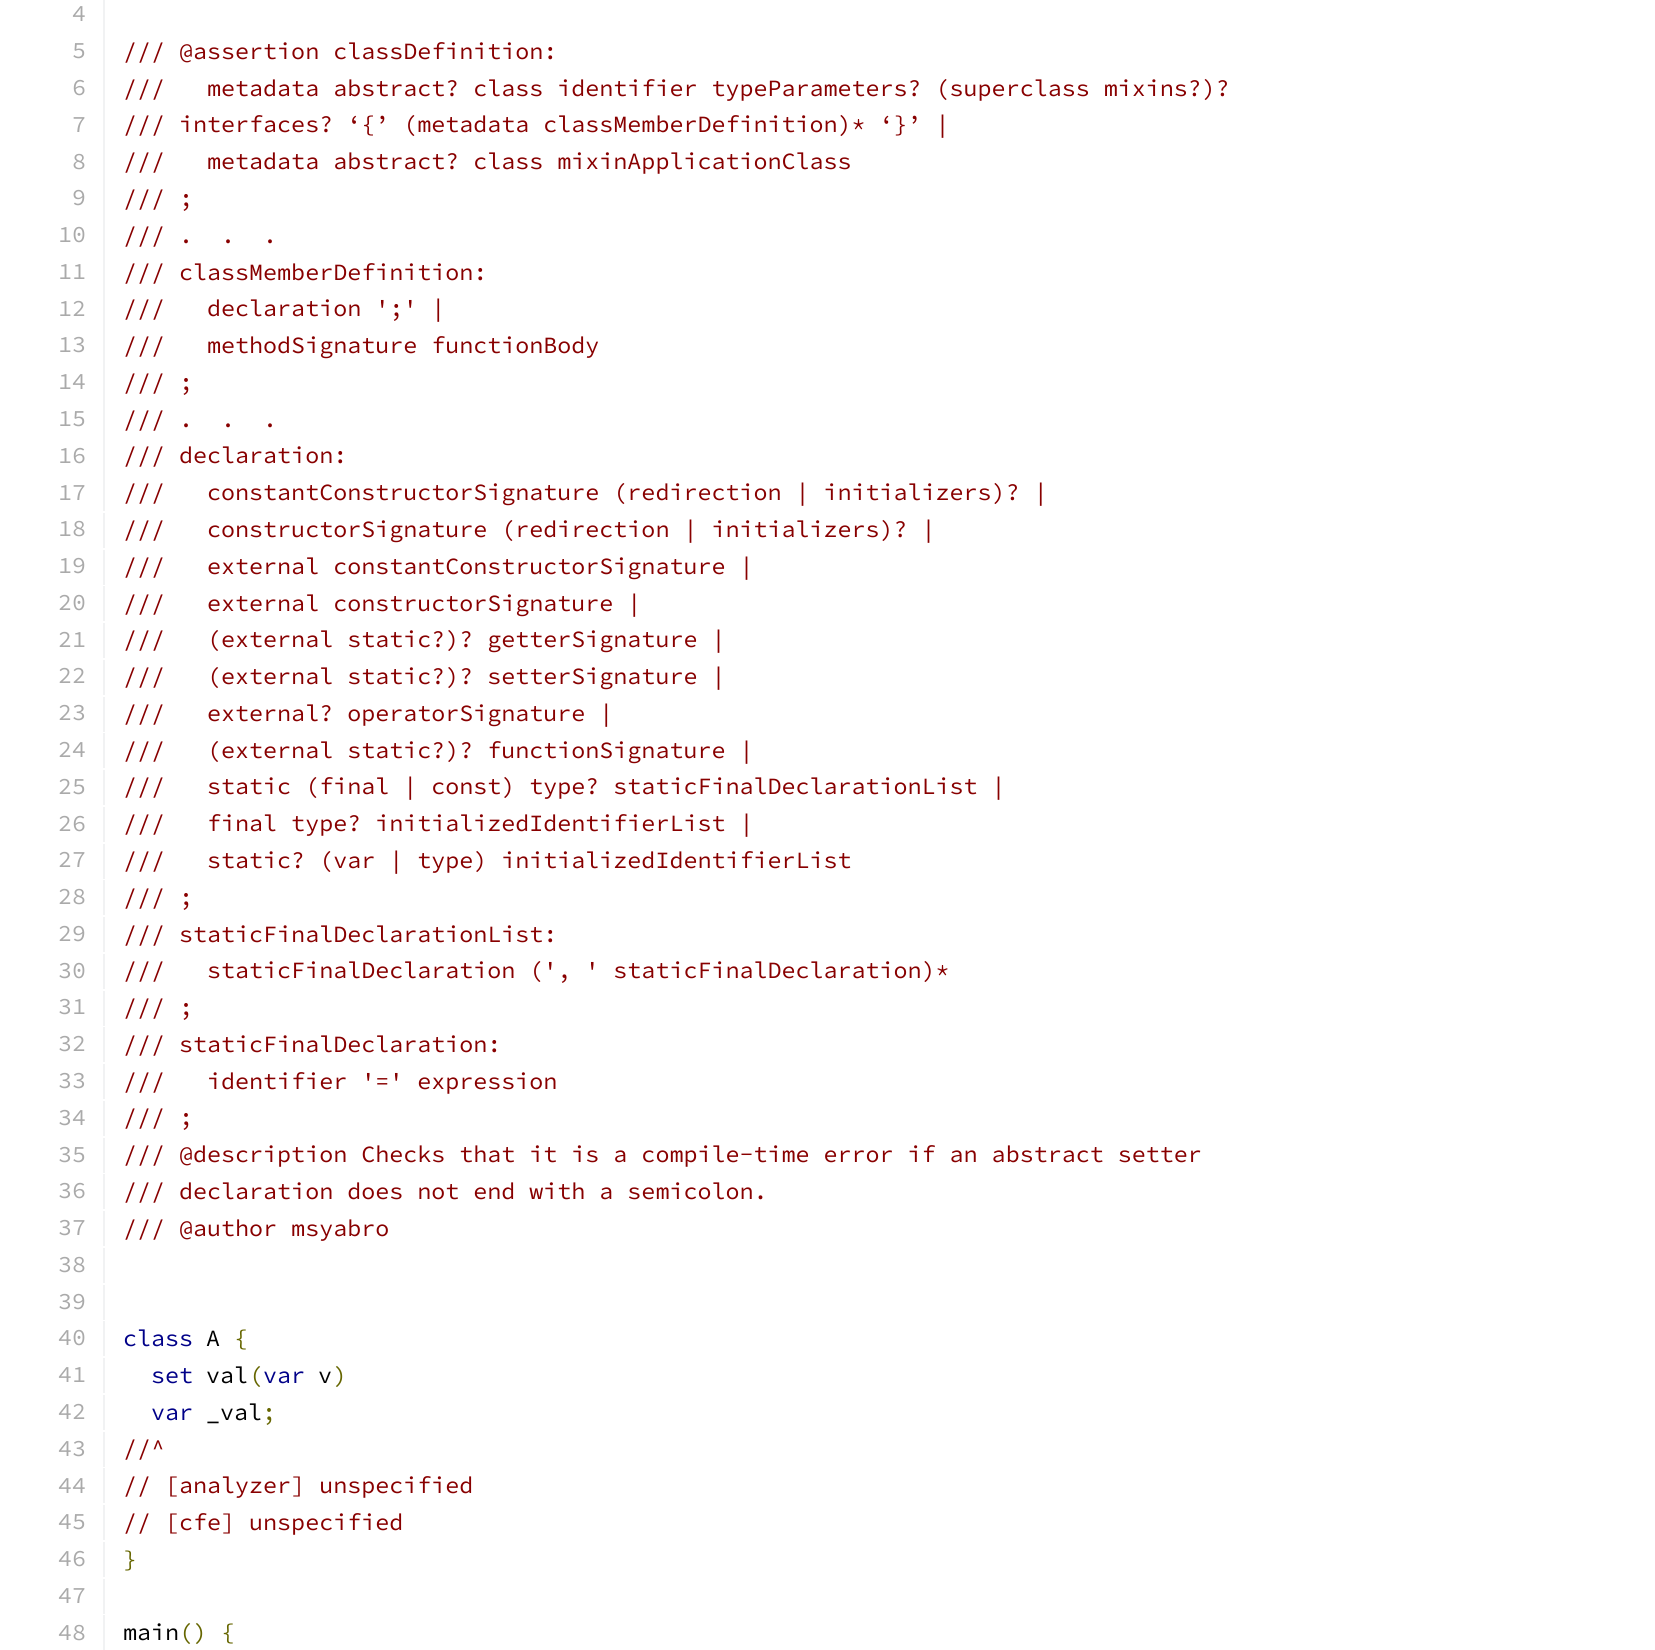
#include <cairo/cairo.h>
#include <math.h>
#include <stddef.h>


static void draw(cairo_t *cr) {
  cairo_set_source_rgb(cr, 1, 1, 1);
  cairo_paint(cr);
  cairo_set_source_rgb(cr, 241 / 255.0, 242 / 255.0, 243 / 255.0);
  cairo_rectangle(cr, 103, 0, 2, 511);
  cairo_fill(cr);
  cairo_rectangle(cr, 103, 513, 2, 35);
  cairo_fill(cr);
  cairo_rectangle(cr, 103, 550, 2, 35);
  cairo_fill(cr);
  cairo_rectangle(cr, 103, 586, 2, 35);
  cairo_fill(cr);
  cairo_rectangle(cr, 103, 623, 2, 35);
  cairo_fill(cr);
  cairo_rectangle(cr, 103, 660, 2, 35);
  cairo_fill(cr);
  cairo_rectangle(cr, 103, 697, 2, 35);
  cairo_fill(cr);
  cairo_rectangle(cr, 103, 733, 2, 35);
  cairo_fill(cr);
  cairo_rectangle(cr, 103, 770, 2, 35);
  cairo_fill(cr);
  cairo_rectangle(cr, 103, 807, 2, 35);
  cairo_fill(cr);
  cairo_rectangle(cr, 103, 844, 2, 35);
  cairo_fill(cr);
  cairo_rectangle(cr, 103, 880, 2, 35);
  cairo_fill(cr);
  cairo_rectangle(cr, 103, 917, 2, 35);
  cairo_fill(cr);
  cairo_rectangle(cr, 103, 954, 2, 35);
  cairo_fill(cr);
  cairo_rectangle(cr, 103, 991, 2, 35);
  cairo_fill(cr);
  cairo_rectangle(cr, 103, 1027, 2, 35);
  cairo_fill(cr);
  cairo_rectangle(cr, 103, 1064, 2, 35);
  cairo_fill(cr);
  cairo_rectangle(cr, 103, 1101, 2, 35);
  cairo_fill(cr);
  cairo_rectangle(cr, 103, 1138, 2, 35);
  cairo_fill(cr);
  cairo_rectangle(cr, 103, 1174, 2, 35);
  cairo_fill(cr);
  cairo_rectangle(cr, 103, 1211, 2, 35);
  cairo_fill(cr);
  cairo_rectangle(cr, 103, 1248, 2, 35);
  cairo_fill(cr);
  cairo_rectangle(cr, 103, 1285, 2, 35);
  cairo_fill(cr);
  cairo_rectangle(cr, 103, 1321, 2, 35);
  cairo_fill(cr);
  cairo_rectangle(cr, 103, 1358, 2, 35);
  cairo_fill(cr);
  cairo_rectangle(cr, 103, 1395, 2, 35);
  cairo_fill(cr);
  cairo_rectangle(cr, 103, 1432, 2, 35);
  cairo_fill(cr);
  cairo_rectangle(cr, 103, 1468, 2, 35);
  cairo_fill(cr);
  cairo_rectangle(cr, 103, 1505, 2, 35);
  cairo_fill(cr);
  cairo_rectangle(cr, 103, 1542, 2, 35);
  cairo_fill(cr);
  cairo_rectangle(cr, 103, 1579, 2, 35);
  cairo_fill(cr);
  cairo_rectangle(cr, 103, 1615, 2, 35);
  cairo_fill(cr);
  cairo_select_font_face(cr, "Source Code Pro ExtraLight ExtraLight", CAIRO_FONT_SLANT_NORMAL, CAIRO_FONT_WEIGHT_NORMAL);
  cairo_set_font_size(cr, 23.35);
  cairo_set_source_rgb(cr, 170 / 255.0, 170 / 255.0, 170 / 255.0);
  cairo_move_to(cr, 72, 21);
  cairo_show_text(cr, "4");
  cairo_move_to(cr, 72, 58);
  cairo_show_text(cr, "5");
  cairo_set_source_rgb(cr, 136 / 255.0, 0, 0);
  cairo_move_to(cr, 123, 59);
  cairo_show_text(cr, "/// @assertion classDefinition:");
  cairo_set_source_rgb(cr, 170 / 255.0, 170 / 255.0, 170 / 255.0);
  cairo_move_to(cr, 72, 95);
  cairo_show_text(cr, "6");
  cairo_set_source_rgb(cr, 136 / 255.0, 0, 0);
  cairo_move_to(cr, 123, 96);
  cairo_show_text(cr, "///   metadata abstract? class identifier typeParameters? (superclass mixins?)?");
  cairo_set_source_rgb(cr, 170 / 255.0, 170 / 255.0, 170 / 255.0);
  cairo_move_to(cr, 72, 132);
  cairo_show_text(cr, "7");
  cairo_set_source_rgb(cr, 136 / 255.0, 0, 0);
  cairo_move_to(cr, 123, 132);
  cairo_show_text(cr, "/// interfaces? ‘{’ (metadata classMemberDefinition)* ‘}’ |");
  cairo_set_source_rgb(cr, 170 / 255.0, 170 / 255.0, 170 / 255.0);
  cairo_move_to(cr, 72, 169);
  cairo_show_text(cr, "8");
  cairo_set_source_rgb(cr, 136 / 255.0, 0, 0);
  cairo_move_to(cr, 123, 169);
  cairo_show_text(cr, "///   metadata abstract? class mixinApplicationClass");
  cairo_set_source_rgb(cr, 170 / 255.0, 170 / 255.0, 170 / 255.0);
  cairo_move_to(cr, 72, 205);
  cairo_show_text(cr, "9");
  cairo_set_source_rgb(cr, 136 / 255.0, 0, 0);
  cairo_move_to(cr, 123, 206);
  cairo_show_text(cr, "/// ;");
  cairo_set_source_rgb(cr, 170 / 255.0, 170 / 255.0, 170 / 255.0);
  cairo_move_to(cr, 58, 242);
  cairo_show_text(cr, "10");
  cairo_set_source_rgb(cr, 136 / 255.0, 0, 0);
  cairo_move_to(cr, 123, 243);
  cairo_show_text(cr, "/// .  .  .");
  cairo_set_source_rgb(cr, 170 / 255.0, 170 / 255.0, 170 / 255.0);
  cairo_move_to(cr, 58, 279);
  cairo_show_text(cr, "11");
  cairo_set_source_rgb(cr, 136 / 255.0, 0, 0);
  cairo_move_to(cr, 123, 280);
  cairo_show_text(cr, "/// classMemberDefinition:");
  cairo_set_source_rgb(cr, 170 / 255.0, 170 / 255.0, 170 / 255.0);
  cairo_move_to(cr, 58, 316);
  cairo_show_text(cr, "12");
  cairo_set_source_rgb(cr, 136 / 255.0, 0, 0);
  cairo_move_to(cr, 123, 316);
  cairo_show_text(cr, "///   declaration ';' |");
  cairo_set_source_rgb(cr, 170 / 255.0, 170 / 255.0, 170 / 255.0);
  cairo_move_to(cr, 58, 352);
  cairo_show_text(cr, "13");
  cairo_set_source_rgb(cr, 136 / 255.0, 0, 0);
  cairo_move_to(cr, 123, 353);
  cairo_show_text(cr, "///   methodSignature functionBody");
  cairo_set_source_rgb(cr, 170 / 255.0, 170 / 255.0, 170 / 255.0);
  cairo_move_to(cr, 58, 389);
  cairo_show_text(cr, "14");
  cairo_set_source_rgb(cr, 136 / 255.0, 0, 0);
  cairo_move_to(cr, 123, 390);
  cairo_show_text(cr, "/// ;");
  cairo_set_source_rgb(cr, 170 / 255.0, 170 / 255.0, 170 / 255.0);
  cairo_move_to(cr, 58, 426);
  cairo_show_text(cr, "15");
  cairo_set_source_rgb(cr, 136 / 255.0, 0, 0);
  cairo_move_to(cr, 123, 427);
  cairo_show_text(cr, "/// .  .  .");
  cairo_set_source_rgb(cr, 170 / 255.0, 170 / 255.0, 170 / 255.0);
  cairo_move_to(cr, 58, 463);
  cairo_show_text(cr, "16");
  cairo_set_source_rgb(cr, 136 / 255.0, 0, 0);
  cairo_move_to(cr, 123, 463);
  cairo_show_text(cr, "/// declaration:");
  cairo_set_source_rgb(cr, 170 / 255.0, 170 / 255.0, 170 / 255.0);
  cairo_move_to(cr, 58, 500);
  cairo_show_text(cr, "17");
  cairo_set_source_rgb(cr, 136 / 255.0, 0, 0);
  cairo_move_to(cr, 123, 500);
  cairo_show_text(cr, "///   constantConstructorSignature (redirection | initializers)? |");
  cairo_set_source_rgb(cr, 170 / 255.0, 170 / 255.0, 170 / 255.0);
  cairo_move_to(cr, 58, 536);
  cairo_show_text(cr, "18");
  cairo_set_source_rgb(cr, 136 / 255.0, 0, 0);
  cairo_move_to(cr, 123, 537);
  cairo_show_text(cr, "///   constructorSignature (redirection | initializers)? |");
  cairo_set_source_rgb(cr, 170 / 255.0, 170 / 255.0, 170 / 255.0);
  cairo_move_to(cr, 58, 573);
  cairo_show_text(cr, "19");
  cairo_set_source_rgb(cr, 136 / 255.0, 0, 0);
  cairo_move_to(cr, 123, 574);
  cairo_show_text(cr, "///   external constantConstructorSignature |");
  cairo_set_source_rgb(cr, 170 / 255.0, 170 / 255.0, 170 / 255.0);
  cairo_move_to(cr, 58, 610);
  cairo_show_text(cr, "20");
  cairo_set_source_rgb(cr, 136 / 255.0, 0, 0);
  cairo_move_to(cr, 123, 611);
  cairo_show_text(cr, "///   external constructorSignature |");
  cairo_set_source_rgb(cr, 170 / 255.0, 170 / 255.0, 170 / 255.0);
  cairo_move_to(cr, 58, 647);
  cairo_show_text(cr, "21");
  cairo_set_source_rgb(cr, 136 / 255.0, 0, 0);
  cairo_move_to(cr, 123, 647);
  cairo_show_text(cr, "///   (external static?)? getterSignature |");
  cairo_set_source_rgb(cr, 170 / 255.0, 170 / 255.0, 170 / 255.0);
  cairo_move_to(cr, 58, 683);
  cairo_show_text(cr, "22");
  cairo_set_source_rgb(cr, 136 / 255.0, 0, 0);
  cairo_move_to(cr, 123, 684);
  cairo_show_text(cr, "///   (external static?)? setterSignature |");
  cairo_set_source_rgb(cr, 170 / 255.0, 170 / 255.0, 170 / 255.0);
  cairo_move_to(cr, 58, 720);
  cairo_show_text(cr, "23");
  cairo_set_source_rgb(cr, 136 / 255.0, 0, 0);
  cairo_move_to(cr, 123, 721);
  cairo_show_text(cr, "///   external? operatorSignature |");
  cairo_set_source_rgb(cr, 170 / 255.0, 170 / 255.0, 170 / 255.0);
  cairo_move_to(cr, 58, 757);
  cairo_show_text(cr, "24");
  cairo_set_source_rgb(cr, 136 / 255.0, 0, 0);
  cairo_move_to(cr, 123, 758);
  cairo_show_text(cr, "///   (external static?)? functionSignature |");
  cairo_set_source_rgb(cr, 170 / 255.0, 170 / 255.0, 170 / 255.0);
  cairo_move_to(cr, 58, 794);
  cairo_show_text(cr, "25");
  cairo_set_source_rgb(cr, 136 / 255.0, 0, 0);
  cairo_move_to(cr, 123, 794);
  cairo_show_text(cr, "///   static (final | const) type? staticFinalDeclarationList |");
  cairo_set_source_rgb(cr, 170 / 255.0, 170 / 255.0, 170 / 255.0);
  cairo_move_to(cr, 58, 831);
  cairo_show_text(cr, "26");
  cairo_set_source_rgb(cr, 136 / 255.0, 0, 0);
  cairo_move_to(cr, 123, 831);
  cairo_show_text(cr, "///   final type? initializedIdentifierList |");
  cairo_set_source_rgb(cr, 170 / 255.0, 170 / 255.0, 170 / 255.0);
  cairo_move_to(cr, 58, 867);
  cairo_show_text(cr, "27");
  cairo_set_source_rgb(cr, 136 / 255.0, 0, 0);
  cairo_move_to(cr, 123, 868);
  cairo_show_text(cr, "///   static? (var | type) initializedIdentifierList");
  cairo_set_source_rgb(cr, 170 / 255.0, 170 / 255.0, 170 / 255.0);
  cairo_move_to(cr, 58, 904);
  cairo_show_text(cr, "28");
  cairo_set_source_rgb(cr, 136 / 255.0, 0, 0);
  cairo_move_to(cr, 123, 905);
  cairo_show_text(cr, "/// ;");
  cairo_set_source_rgb(cr, 170 / 255.0, 170 / 255.0, 170 / 255.0);
  cairo_move_to(cr, 58, 941);
  cairo_show_text(cr, "29");
  cairo_set_source_rgb(cr, 136 / 255.0, 0, 0);
  cairo_move_to(cr, 123, 942);
  cairo_show_text(cr, "/// staticFinalDeclarationList:");
  cairo_set_source_rgb(cr, 170 / 255.0, 170 / 255.0, 170 / 255.0);
  cairo_move_to(cr, 58, 978);
  cairo_show_text(cr, "30");
  cairo_set_source_rgb(cr, 136 / 255.0, 0, 0);
  cairo_move_to(cr, 123, 978);
  cairo_show_text(cr, "///   staticFinalDeclaration (', ' staticFinalDeclaration)*");
  cairo_set_source_rgb(cr, 170 / 255.0, 170 / 255.0, 170 / 255.0);
  cairo_move_to(cr, 58, 1014);
  cairo_show_text(cr, "31");
  cairo_set_source_rgb(cr, 136 / 255.0, 0, 0);
  cairo_move_to(cr, 123, 1015);
  cairo_show_text(cr, "/// ;");
  cairo_set_source_rgb(cr, 170 / 255.0, 170 / 255.0, 170 / 255.0);
  cairo_move_to(cr, 58, 1051);
  cairo_show_text(cr, "32");
  cairo_set_source_rgb(cr, 136 / 255.0, 0, 0);
  cairo_move_to(cr, 123, 1052);
  cairo_show_text(cr, "/// staticFinalDeclaration:");
  cairo_set_source_rgb(cr, 170 / 255.0, 170 / 255.0, 170 / 255.0);
  cairo_move_to(cr, 58, 1088);
  cairo_show_text(cr, "33");
  cairo_set_source_rgb(cr, 136 / 255.0, 0, 0);
  cairo_move_to(cr, 123, 1089);
  cairo_show_text(cr, "///   identifier '=' expression");
  cairo_set_source_rgb(cr, 170 / 255.0, 170 / 255.0, 170 / 255.0);
  cairo_move_to(cr, 58, 1125);
  cairo_show_text(cr, "34");
  cairo_set_source_rgb(cr, 136 / 255.0, 0, 0);
  cairo_move_to(cr, 123, 1125);
  cairo_show_text(cr, "/// ;");
  cairo_set_source_rgb(cr, 170 / 255.0, 170 / 255.0, 170 / 255.0);
  cairo_move_to(cr, 58, 1162);
  cairo_show_text(cr, "35");
  cairo_set_source_rgb(cr, 136 / 255.0, 0, 0);
  cairo_move_to(cr, 123, 1162);
  cairo_show_text(cr, "/// @description Checks that it is a compile-time error if an abstract setter");
  cairo_set_source_rgb(cr, 170 / 255.0, 170 / 255.0, 170 / 255.0);
  cairo_move_to(cr, 58, 1198);
  cairo_show_text(cr, "36");
  cairo_set_source_rgb(cr, 136 / 255.0, 0, 0);
  cairo_move_to(cr, 123, 1199);
  cairo_show_text(cr, "/// declaration does not end with a semicolon.");
  cairo_set_source_rgb(cr, 170 / 255.0, 170 / 255.0, 170 / 255.0);
  cairo_move_to(cr, 58, 1235);
  cairo_show_text(cr, "37");
  cairo_set_source_rgb(cr, 136 / 255.0, 0, 0);
  cairo_move_to(cr, 123, 1236);
  cairo_show_text(cr, "/// @author msyabro");
  cairo_set_source_rgb(cr, 170 / 255.0, 170 / 255.0, 170 / 255.0);
  cairo_move_to(cr, 58, 1272);
  cairo_show_text(cr, "38");
  cairo_move_to(cr, 58, 1309);
  cairo_show_text(cr, "39");
  cairo_move_to(cr, 58, 1345);
  cairo_show_text(cr, "40");
  cairo_set_source_rgb(cr, 0, 0, 136 / 255.0);
  cairo_move_to(cr, 123, 1346);
  cairo_show_text(cr, "class");
  cairo_set_source_rgb(cr, 0, 0, 0);
  cairo_move_to(cr, 206, 1346);
  cairo_show_text(cr, "A");
  cairo_set_source_rgb(cr, 102 / 255.0, 102 / 255.0, 0);
  cairo_move_to(cr, 234, 1346);
  cairo_show_text(cr, "{");
  cairo_set_source_rgb(cr, 170 / 255.0, 170 / 255.0, 170 / 255.0);
  cairo_move_to(cr, 58, 1382);
  cairo_show_text(cr, "41");
  cairo_set_source_rgb(cr, 0, 0, 136 / 255.0);
  cairo_move_to(cr, 151, 1383);
  cairo_show_text(cr, "set");
  cairo_set_source_rgb(cr, 0, 0, 0);
  cairo_move_to(cr, 206, 1383);
  cairo_show_text(cr, "val");
  cairo_set_source_rgb(cr, 102 / 255.0, 102 / 255.0, 0);
  cairo_move_to(cr, 249, 1383);
  cairo_show_text(cr, "(");
  cairo_set_source_rgb(cr, 0, 0, 136 / 255.0);
  cairo_move_to(cr, 263, 1383);
  cairo_show_text(cr, "var");
  cairo_set_source_rgb(cr, 0, 0, 0);
  cairo_move_to(cr, 318, 1383);
  cairo_show_text(cr, "v");
  cairo_set_source_rgb(cr, 102 / 255.0, 102 / 255.0, 0);
  cairo_move_to(cr, 333, 1383);
  cairo_show_text(cr, ")");
  cairo_set_source_rgb(cr, 170 / 255.0, 170 / 255.0, 170 / 255.0);
  cairo_move_to(cr, 58, 1419);
  cairo_show_text(cr, "42");
  cairo_set_source_rgb(cr, 0, 0, 136 / 255.0);
  cairo_move_to(cr, 151, 1420);
  cairo_show_text(cr, "var");
  cairo_set_source_rgb(cr, 0, 0, 0);
  cairo_move_to(cr, 206, 1420);
  cairo_show_text(cr, "_val");
  cairo_set_source_rgb(cr, 102 / 255.0, 102 / 255.0, 0);
  cairo_move_to(cr, 262, 1420);
  cairo_show_text(cr, ";");
  cairo_set_source_rgb(cr, 170 / 255.0, 170 / 255.0, 170 / 255.0);
  cairo_move_to(cr, 58, 1456);
  cairo_show_text(cr, "43");
  cairo_set_source_rgb(cr, 136 / 255.0, 0, 0);
  cairo_move_to(cr, 123, 1456);
  cairo_show_text(cr, "//^");
  cairo_set_source_rgb(cr, 170 / 255.0, 170 / 255.0, 170 / 255.0);
  cairo_move_to(cr, 58, 1493);
  cairo_show_text(cr, "44");
  cairo_set_source_rgb(cr, 136 / 255.0, 0, 0);
  cairo_move_to(cr, 123, 1493);
  cairo_show_text(cr, "// [analyzer] unspecified");
  cairo_set_source_rgb(cr, 170 / 255.0, 170 / 255.0, 170 / 255.0);
  cairo_move_to(cr, 58, 1529);
  cairo_show_text(cr, "45");
  cairo_set_source_rgb(cr, 136 / 255.0, 0, 0);
  cairo_move_to(cr, 123, 1530);
  cairo_show_text(cr, "// [cfe] unspecified");
  cairo_set_source_rgb(cr, 170 / 255.0, 170 / 255.0, 170 / 255.0);
  cairo_move_to(cr, 58, 1566);
  cairo_show_text(cr, "46");
  cairo_set_source_rgb(cr, 102 / 255.0, 102 / 255.0, 0);
  cairo_move_to(cr, 123, 1567);
  cairo_show_text(cr, "}");
  cairo_set_source_rgb(cr, 170 / 255.0, 170 / 255.0, 170 / 255.0);
  cairo_move_to(cr, 58, 1603);
  cairo_show_text(cr, "47");
  cairo_move_to(cr, 58, 1640);
  cairo_show_text(cr, "48");
  cairo_set_source_rgb(cr, 0, 0, 0);
  cairo_move_to(cr, 123, 1640);
  cairo_show_text(cr, "main");
  cairo_set_source_rgb(cr, 102 / 255.0, 102 / 255.0, 0);
  cairo_move_to(cr, 179, 1640);
  cairo_show_text(cr, "() {");
}

int main(void) {
  cairo_surface_t *surface = cairo_image_surface_create(CAIRO_FORMAT_RGB24, 1655, 1650);
  cairo_t *cr = cairo_create(surface);
  cairo_font_options_t *options = cairo_font_options_create();
  cairo_font_options_set_hint_metrics(options, CAIRO_HINT_METRICS_OFF);
  cairo_font_options_set_hint_style(options, CAIRO_HINT_STYLE_NONE);
  cairo_set_font_options(cr, options);
  cairo_set_miter_limit(cr, 4);
  draw(cr);
  cairo_surface_write_to_png(surface, "out.png");
  cairo_font_options_destroy(options);
  cairo_destroy(cr);
  cairo_surface_destroy(surface);
  return 0;
}
